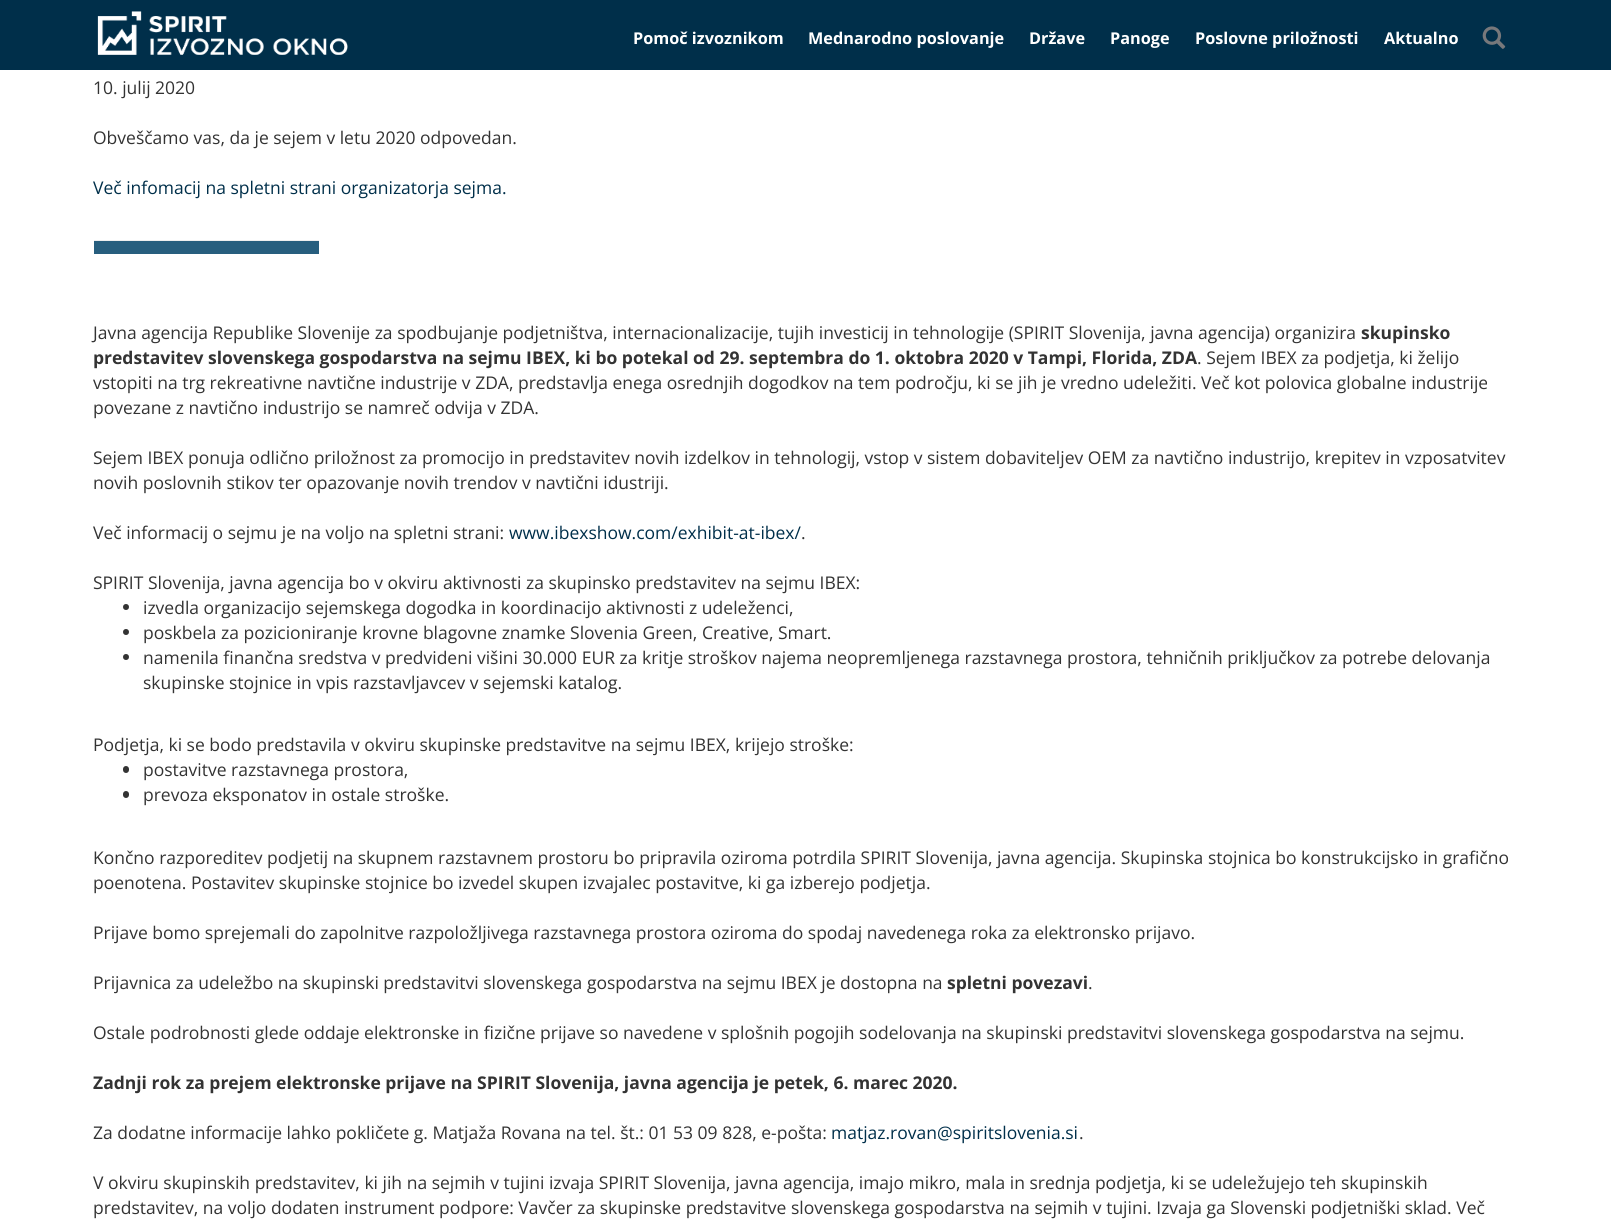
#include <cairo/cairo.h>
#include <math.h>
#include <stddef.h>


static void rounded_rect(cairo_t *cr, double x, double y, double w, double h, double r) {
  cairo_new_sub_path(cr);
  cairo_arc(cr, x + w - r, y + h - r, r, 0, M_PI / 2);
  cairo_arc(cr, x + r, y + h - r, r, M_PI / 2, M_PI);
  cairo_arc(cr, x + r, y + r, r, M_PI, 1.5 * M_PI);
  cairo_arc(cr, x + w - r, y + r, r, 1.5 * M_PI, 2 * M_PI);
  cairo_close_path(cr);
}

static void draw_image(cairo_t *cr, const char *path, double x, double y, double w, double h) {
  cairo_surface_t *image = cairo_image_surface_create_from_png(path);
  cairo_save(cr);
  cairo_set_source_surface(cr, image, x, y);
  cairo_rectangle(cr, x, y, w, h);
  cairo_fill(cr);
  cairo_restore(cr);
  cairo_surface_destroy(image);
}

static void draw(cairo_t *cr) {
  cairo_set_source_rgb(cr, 1, 1, 1);
  cairo_paint(cr);
  cairo_set_source_rgb(cr, 0, 47 / 255.0, 74 / 255.0);
  cairo_rectangle(cr, 0, 0, 1611, 70);
  cairo_fill(cr);
  draw_image(cr, "images/1.png", 97, 11, 251, 44);
  draw_image(cr, "images/2.png", 1482, 26, 24, 23);
  cairo_set_source_rgb(cr, 39 / 255.0, 94 / 255.0, 126 / 255.0);
  cairo_rectangle(cr, 94, 241, 225, 13);
  cairo_fill(cr);
  cairo_set_source_rgb(cr, 238 / 255.0, 238 / 255.0, 238 / 255.0);
  cairo_rectangle(cr, 94, 240, 225, 1);
  cairo_fill(cr);
  cairo_set_source_rgb(cr, 51 / 255.0, 51 / 255.0, 51 / 255.0);
  cairo_arc(cr, 126, 607, 3, 0, 2 * M_PI);
  cairo_fill(cr);
  cairo_arc(cr, 126, 632, 3, 0, 2 * M_PI);
  cairo_fill(cr);
  cairo_arc(cr, 126, 657, 3, 0, 2 * M_PI);
  cairo_fill(cr);
  rounded_rect(cr, 123, 766, 6, 7, 3);
  cairo_fill(cr);
  rounded_rect(cr, 123, 791, 6, 7, 3);
  cairo_fill(cr);
  cairo_select_font_face(cr, "Open Sans", CAIRO_FONT_SLANT_NORMAL, CAIRO_FONT_WEIGHT_BOLD);
  cairo_set_font_size(cr, 16.25);
  cairo_set_source_rgb(cr, 1, 1, 1);
  cairo_move_to(cr, 633, 44);
  cairo_show_text(cr, "Pomoč izvoznikom");
  cairo_move_to(cr, 808, 44);
  cairo_show_text(cr, "Mednarodno poslovanje");
  cairo_move_to(cr, 1029, 44);
  cairo_show_text(cr, "Države");
  cairo_move_to(cr, 1110, 44);
  cairo_show_text(cr, "Panoge");
  cairo_move_to(cr, 1195, 44);
  cairo_show_text(cr, "Poslovne priložnosti");
  cairo_move_to(cr, 1384, 44);
  cairo_show_text(cr, "Aktualno");
  cairo_select_font_face(cr, "Open Sans", CAIRO_FONT_SLANT_NORMAL, CAIRO_FONT_WEIGHT_NORMAL);
  cairo_set_font_size(cr, 17.5);
  cairo_set_source_rgb(cr, 51 / 255.0, 51 / 255.0, 51 / 255.0);
  cairo_move_to(cr, 93, 94);
  cairo_show_text(cr, "10. julij 2020");
  cairo_move_to(cr, 93, 144);
  cairo_show_text(cr, "Obveščamo vas, da je sejem v letu 2020 odpovedan.");
  cairo_set_source_rgb(cr, 0, 47 / 255.0, 74 / 255.0);
  cairo_move_to(cr, 93, 194);
  cairo_show_text(cr, "Več infomacij na spletni strani organizatorja sejma.");
  cairo_set_source_rgb(cr, 51 / 255.0, 51 / 255.0, 51 / 255.0);
  cairo_move_to(cr, 93, 339);
  cairo_show_text(cr, "Javna agencija Republike Slovenije za spodbujanje podjetništva, internacionalizacije, tujih investicij in tehnologije (SPIRIT Slovenija, javna agencija) organizira");
  cairo_select_font_face(cr, "Open Sans", CAIRO_FONT_SLANT_NORMAL, CAIRO_FONT_WEIGHT_BOLD);
  cairo_move_to(cr, 1361, 339);
  cairo_show_text(cr, "skupinsko");
  cairo_move_to(cr, 93, 364);
  cairo_show_text(cr, "predstavitev slovenskega gospodarstva na sejmu IBEX, ki bo potekal od 29. septembra do 1. oktobra 2020 v Tampi, Florida, ZDA");
  cairo_select_font_face(cr, "Open Sans", CAIRO_FONT_SLANT_NORMAL, CAIRO_FONT_WEIGHT_NORMAL);
  cairo_move_to(cr, 1197, 364);
  cairo_show_text(cr, ". Sejem IBEX za podjetja, ki želijo");
  cairo_move_to(cr, 93, 389);
  cairo_show_text(cr, "vstopiti na trg rekreativne navtične industrije v ZDA, predstavlja enega osrednjih dogodkov na tem področju, ki se jih je vredno udeležiti. Več kot polovica globalne industrije");
  cairo_move_to(cr, 93, 414);
  cairo_show_text(cr, "povezane z navtično industrijo se namreč odvija v ZDA.");
  cairo_move_to(cr, 93, 464);
  cairo_show_text(cr, "Sejem IBEX ponuja odlično priložnost za promocijo in predstavitev novih izdelkov in tehnologij, vstop v sistem dobaviteljev OEM za navtično industrijo, krepitev in vzposatvitev");
  cairo_move_to(cr, 93, 489);
  cairo_show_text(cr, "novih poslovnih stikov ter opazovanje novih trendov v navtični idustriji.");
  cairo_move_to(cr, 93, 539);
  cairo_show_text(cr, "Več informacij o sejmu je na voljo na spletni strani:");
  cairo_set_source_rgb(cr, 0, 47 / 255.0, 74 / 255.0);
  cairo_move_to(cr, 509, 539);
  cairo_show_text(cr, "www.ibexshow.com/exhibit-at-ibex/");
  cairo_set_source_rgb(cr, 51 / 255.0, 51 / 255.0, 51 / 255.0);
  cairo_move_to(cr, 801, 539);
  cairo_show_text(cr, ".");
  cairo_move_to(cr, 93, 589);
  cairo_show_text(cr, "SPIRIT Slovenija, javna agencija bo v okviru aktivnosti za skupinsko predstavitev na sejmu IBEX:");
  cairo_move_to(cr, 143, 614);
  cairo_show_text(cr, "izvedla organizacijo sejemskega dogodka in koordinacijo aktivnosti z udeleženci,");
  cairo_move_to(cr, 143, 639);
  cairo_show_text(cr, "poskbela za pozicioniranje krovne blagovne znamke Slovenia Green, Creative, Smart.");
  cairo_move_to(cr, 143, 664);
  cairo_show_text(cr, "namenila finančna sredstva v predvideni višini 30.000 EUR za kritje stroškov najema neopremljenega razstavnega prostora, tehničnih priključkov za potrebe delovanja");
  cairo_move_to(cr, 143, 689);
  cairo_show_text(cr, "skupinske stojnice in vpis razstavljavcev v sejemski katalog.");
  cairo_move_to(cr, 93, 751);
  cairo_show_text(cr, "Podjetja, ki se bodo predstavila v okviru skupinske predstavitve na sejmu IBEX, krijejo stroške:");
  cairo_move_to(cr, 143, 776);
  cairo_show_text(cr, "postavitve razstavnega prostora,");
  cairo_move_to(cr, 143, 801);
  cairo_show_text(cr, "prevoza eksponatov in ostale stroške.");
  cairo_move_to(cr, 93, 864);
  cairo_show_text(cr, "Končno razporeditev podjetij na skupnem razstavnem prostoru bo pripravila oziroma potrdila SPIRIT Slovenija, javna agencija. Skupinska stojnica bo konstrukcijsko in grafično");
  cairo_move_to(cr, 93, 889);
  cairo_show_text(cr, "poenotena. Postavitev skupinske stojnice bo izvedel skupen izvajalec postavitve, ki ga izberejo podjetja.");
  cairo_move_to(cr, 93, 939);
  cairo_show_text(cr, "Prijave bomo sprejemali do zapolnitve razpoložljivega razstavnega prostora oziroma do spodaj navedenega roka za elektronsko prijavo.");
  cairo_move_to(cr, 93, 989);
  cairo_show_text(cr, "Prijavnica za udeležbo na skupinski predstavitvi slovenskega gospodarstva na sejmu IBEX je dostopna na");
  cairo_select_font_face(cr, "Open Sans", CAIRO_FONT_SLANT_NORMAL, CAIRO_FONT_WEIGHT_BOLD);
  cairo_move_to(cr, 947, 989);
  cairo_show_text(cr, "spletni povezavi");
  cairo_select_font_face(cr, "Open Sans", CAIRO_FONT_SLANT_NORMAL, CAIRO_FONT_WEIGHT_NORMAL);
  cairo_move_to(cr, 1088, 989);
  cairo_show_text(cr, ".");
  cairo_move_to(cr, 93, 1039);
  cairo_show_text(cr, "Ostale podrobnosti glede oddaje elektronske in fizične prijave so navedene v splošnih pogojih sodelovanja na skupinski predstavitvi slovenskega gospodarstva na sejmu.");
  cairo_select_font_face(cr, "Open Sans", CAIRO_FONT_SLANT_NORMAL, CAIRO_FONT_WEIGHT_BOLD);
  cairo_move_to(cr, 93, 1089);
  cairo_show_text(cr, "Zadnji rok za prejem elektronske prijave na SPIRIT Slovenija, javna agencija je petek, 6. marec 2020.");
  cairo_select_font_face(cr, "Open Sans", CAIRO_FONT_SLANT_NORMAL, CAIRO_FONT_WEIGHT_NORMAL);
  cairo_move_to(cr, 93, 1139);
  cairo_show_text(cr, "Za dodatne informacije lahko pokličete g. Matjaža Rovana na tel. št.: 01 53 09 828, e-pošta:");
  cairo_set_source_rgb(cr, 0, 47 / 255.0, 74 / 255.0);
  cairo_move_to(cr, 831, 1139);
  cairo_show_text(cr, "matjaz.rovan@spiritslovenia.si");
  cairo_set_source_rgb(cr, 51 / 255.0, 51 / 255.0, 51 / 255.0);
  cairo_move_to(cr, 1079, 1139);
  cairo_show_text(cr, ".");
  cairo_move_to(cr, 93, 1189);
  cairo_show_text(cr, "V okviru skupinskih predstavitev, ki jih na sejmih v tujini izvaja SPIRIT Slovenija, javna agencija, imajo mikro, mala in srednja podjetja, ki se udeležujejo teh skupinskih");
  cairo_move_to(cr, 93, 1214);
  cairo_show_text(cr, "predstavitev, na voljo dodaten instrument podpore: Vavčer za skupinske predstavitve slovenskega gospodarstva na sejmih v tujini. Izvaja ga Slovenski podjetniški sklad. Več");
}

int main(void) {
  cairo_surface_t *surface = cairo_image_surface_create(CAIRO_FORMAT_RGB24, 1611, 1232);
  cairo_t *cr = cairo_create(surface);
  cairo_font_options_t *options = cairo_font_options_create();
  cairo_font_options_set_hint_metrics(options, CAIRO_HINT_METRICS_OFF);
  cairo_font_options_set_hint_style(options, CAIRO_HINT_STYLE_NONE);
  cairo_set_font_options(cr, options);
  cairo_set_miter_limit(cr, 4);
  draw(cr);
  cairo_surface_write_to_png(surface, "out.png");
  cairo_font_options_destroy(options);
  cairo_destroy(cr);
  cairo_surface_destroy(surface);
  return 0;
}
